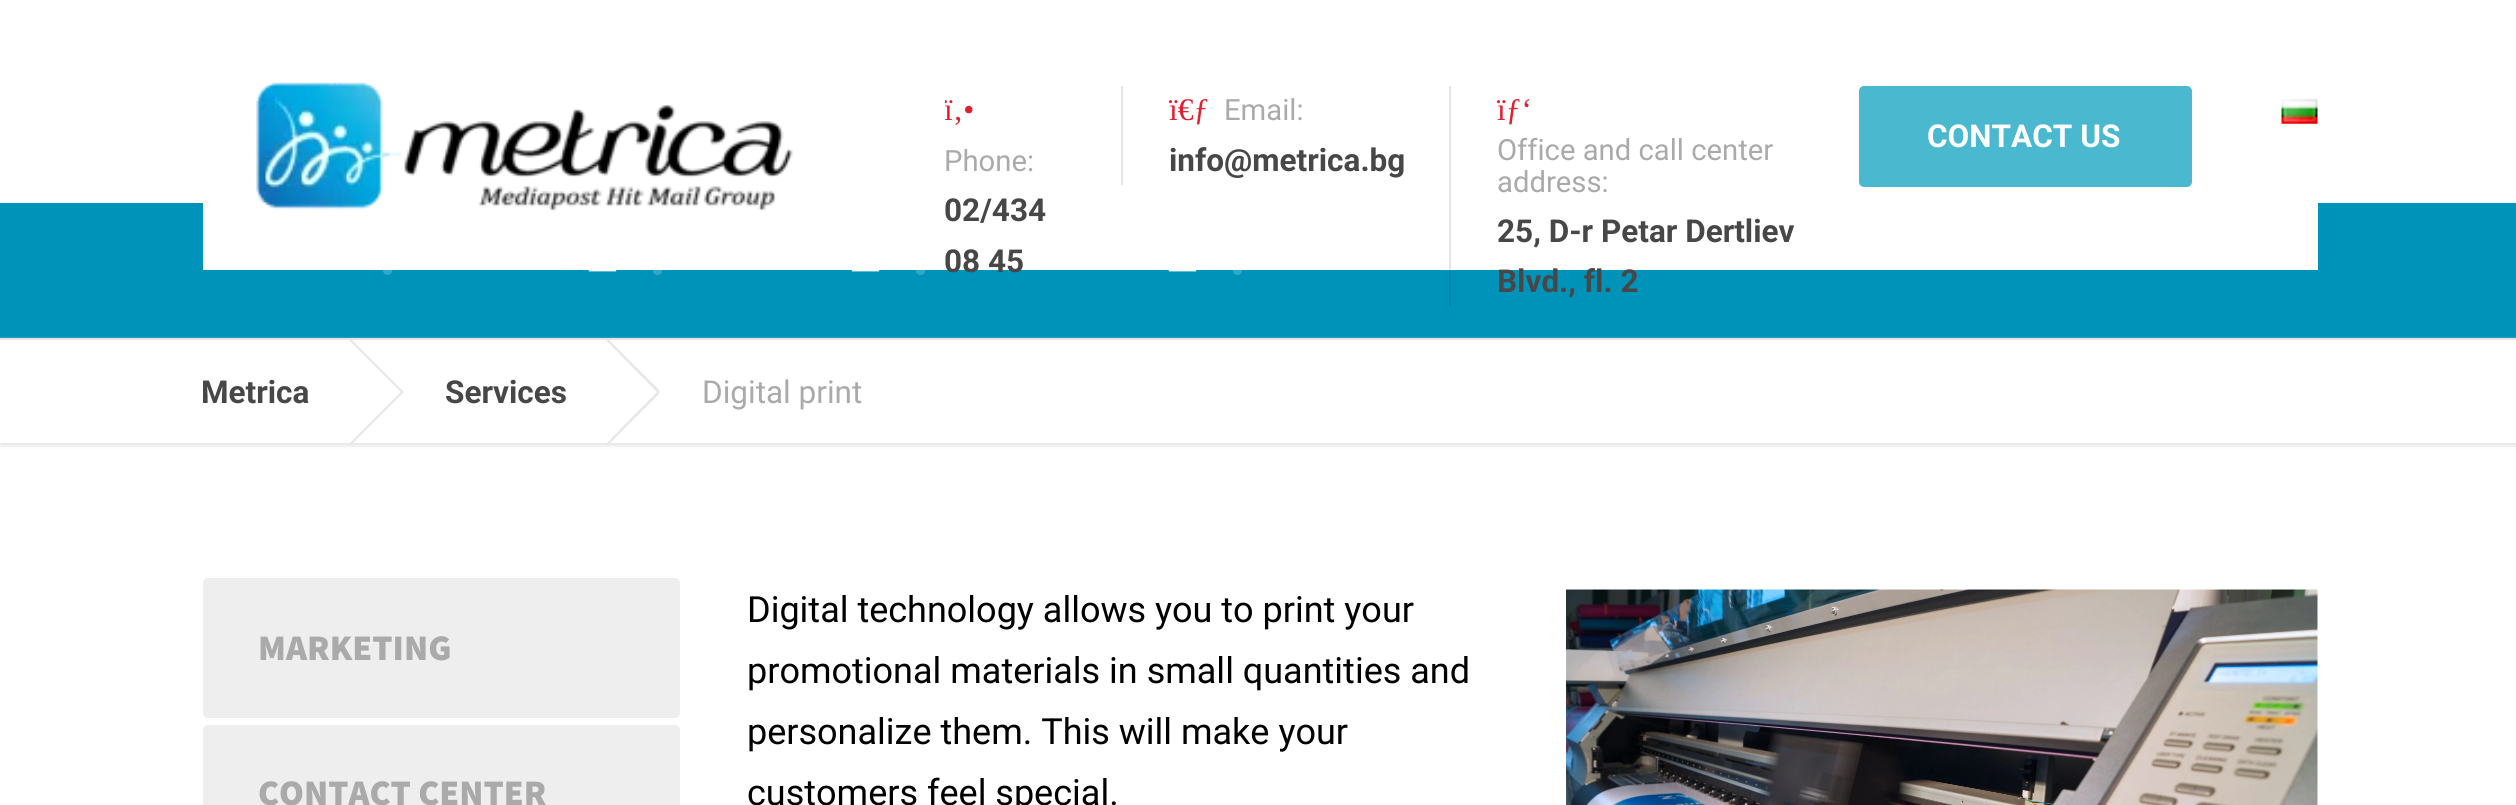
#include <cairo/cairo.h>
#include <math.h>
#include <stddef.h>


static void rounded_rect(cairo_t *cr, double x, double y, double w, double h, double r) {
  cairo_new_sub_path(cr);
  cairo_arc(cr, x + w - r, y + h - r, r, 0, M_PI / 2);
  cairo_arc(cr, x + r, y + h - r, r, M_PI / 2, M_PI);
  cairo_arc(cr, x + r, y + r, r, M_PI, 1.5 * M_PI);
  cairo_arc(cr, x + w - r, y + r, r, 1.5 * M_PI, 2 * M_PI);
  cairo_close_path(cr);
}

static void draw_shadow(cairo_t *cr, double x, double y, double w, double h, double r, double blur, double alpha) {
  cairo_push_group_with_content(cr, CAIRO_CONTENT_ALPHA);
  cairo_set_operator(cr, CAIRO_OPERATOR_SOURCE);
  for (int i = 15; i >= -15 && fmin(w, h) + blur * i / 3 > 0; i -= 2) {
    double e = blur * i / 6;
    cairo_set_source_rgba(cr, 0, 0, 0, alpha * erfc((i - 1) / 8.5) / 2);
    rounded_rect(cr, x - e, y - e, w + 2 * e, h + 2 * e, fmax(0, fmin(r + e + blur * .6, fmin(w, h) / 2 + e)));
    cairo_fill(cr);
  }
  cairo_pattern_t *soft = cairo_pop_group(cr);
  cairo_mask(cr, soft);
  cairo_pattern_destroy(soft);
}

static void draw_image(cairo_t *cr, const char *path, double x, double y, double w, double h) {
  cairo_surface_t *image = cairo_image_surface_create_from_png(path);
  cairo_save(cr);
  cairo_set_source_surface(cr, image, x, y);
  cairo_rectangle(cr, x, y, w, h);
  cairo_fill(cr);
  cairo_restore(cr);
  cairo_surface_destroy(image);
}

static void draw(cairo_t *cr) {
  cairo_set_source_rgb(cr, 1, 1, 1);
  cairo_paint(cr);
  cairo_set_source_rgb(cr, 0, 147 / 255.0, 186 / 255.0);
  cairo_rectangle(cr, 0, 203, 2516, 135);
  cairo_fill(cr);
  cairo_set_source_rgb(cr, 0, 132 / 255.0, 167 / 255.0);
  cairo_rectangle(cr, 1449, 270, 2, 36);
  cairo_fill(cr);
  cairo_set_source_rgb(cr, 1, 1, 1);
  cairo_rectangle(cr, 945, 203, 1373, 67);
  cairo_fill(cr);
  cairo_set_source_rgb(cr, 230 / 255.0, 230 / 255.0, 230 / 255.0);
  cairo_rectangle(cr, 1449, 86, 2, 184);
  cairo_fill(cr);
  cairo_rectangle(cr, 1121, 86, 2, 99);
  cairo_fill(cr);
  cairo_set_source_rgb(cr, 74 / 255.0, 185 / 255.0, 207 / 255.0);
  rounded_rect(cr, 1860, 87, 331, 99, 4);
  cairo_fill_preserve(cr);
  cairo_stroke(cr);
  draw_image(cr, "images/2.png", 2281, 99, 37, 25);
  cairo_set_source_rgb(cr, 50 / 255.0, 168 / 255.0, 199 / 255.0);
  cairo_arc(cr, 387.5, 270.5, 4.5, 0, 2 * M_PI);
  cairo_fill(cr);
  cairo_arc(cr, 657.5, 270.5, 4.5, 0, 2 * M_PI);
  cairo_fill(cr);
  cairo_arc(cr, 920.5, 270.5, 4.5, 0, 2 * M_PI);
  cairo_fill(cr);
  cairo_set_source_rgba(cr, 250 / 255.0, 250 / 255.0, 250 / 255.0, 0.2);
  cairo_arc(cr, 1237.5, 270.5, 4.5, 0, 2 * M_PI);
  cairo_fill(cr);
  cairo_save(cr);
  cairo_set_fill_rule(cr, CAIRO_FILL_RULE_EVEN_ODD);
  cairo_new_path(cr);
  cairo_move_to(cr, 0, 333);
  cairo_line_to(cr, 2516, 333);
  cairo_line_to(cr, 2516, 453);
  cairo_line_to(cr, 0, 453);
  cairo_close_path(cr);
  cairo_move_to(cr, 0, 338);
  cairo_line_to(cr, 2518, 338);
  cairo_line_to(cr, 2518, 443);
  cairo_line_to(cr, 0, 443);
  cairo_close_path(cr);
  cairo_clip(cr);
  cairo_set_source_rgb(cr, 230 / 255.0, 230 / 255.0, 230 / 255.0);
  draw_shadow(cr, 0, 340, 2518, 106, 0, 2, 1);
  cairo_restore(cr);
  cairo_set_source_rgb(cr, 230 / 255.0, 230 / 255.0, 230 / 255.0);
  cairo_rectangle(cr, 0, 338, 2516, 2);
  cairo_fill(cr);
  cairo_new_path(cr);
  cairo_move_to(cr, 349, 340);
  cairo_line_to(cr, 351, 339);
  cairo_line_to(cr, 403, 391);
  cairo_line_to(cr, 402, 393);
  cairo_close_path(cr);
  cairo_fill(cr);
  cairo_new_path(cr);
  cairo_move_to(cr, 402, 391);
  cairo_line_to(cr, 403, 393);
  cairo_line_to(cr, 351, 445);
  cairo_line_to(cr, 349, 444);
  cairo_close_path(cr);
  cairo_fill(cr);
  cairo_new_path(cr);
  cairo_move_to(cr, 606, 340);
  cairo_line_to(cr, 608, 339);
  cairo_line_to(cr, 660, 391);
  cairo_line_to(cr, 658, 393);
  cairo_close_path(cr);
  cairo_fill(cr);
  cairo_new_path(cr);
  cairo_move_to(cr, 658, 391);
  cairo_line_to(cr, 660, 393);
  cairo_line_to(cr, 608, 445);
  cairo_line_to(cr, 606, 444);
  cairo_close_path(cr);
  cairo_fill(cr);
  cairo_set_source_rgb(cr, 238 / 255.0, 238 / 255.0, 238 / 255.0);
  rounded_rect(cr, 203, 578, 477, 140, 5);
  cairo_fill(cr);
  rounded_rect(cr, 203, 725, 477, 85, 5);
  cairo_fill(cr);
  draw_image(cr, "images/3.png", 1566, 589, 752, 216);
  cairo_select_font_face(cr, "Liberation Serif", CAIRO_FONT_SLANT_NORMAL, CAIRO_FONT_WEIGHT_NORMAL);
  cairo_set_font_size(cr, 31.5);
  cairo_set_source_rgb(cr, 226 / 255.0, 31 / 255.0, 47 / 255.0);
  cairo_move_to(cr, 944, 120);
  cairo_show_text(cr, "ï‚•");
  cairo_set_source_rgb(cr, 1, 1, 1);
  cairo_rectangle(cr, 203, 100, 742, 170);
  cairo_fill(cr);
  draw_image(cr, "images/1.png", 256, 82, 537, 130);
  cairo_select_font_face(cr, "Roboto", CAIRO_FONT_SLANT_NORMAL, CAIRO_FONT_WEIGHT_NORMAL);
  cairo_set_font_size(cr, 29.25);
  cairo_set_source_rgb(cr, 170 / 255.0, 170 / 255.0, 170 / 255.0);
  cairo_move_to(cr, 944, 171);
  cairo_show_text(cr, "Phone:");
  cairo_select_font_face(cr, "Roboto", CAIRO_FONT_SLANT_NORMAL, CAIRO_FONT_WEIGHT_BOLD);
  cairo_set_font_size(cr, 31.5);
  cairo_set_source_rgb(cr, 71 / 255.0, 71 / 255.0, 71 / 255.0);
  cairo_move_to(cr, 944, 221);
  cairo_show_text(cr, "02/434");
  cairo_move_to(cr, 944, 272);
  cairo_show_text(cr, "08 45");
  cairo_select_font_face(cr, "Liberation Serif", CAIRO_FONT_SLANT_NORMAL, CAIRO_FONT_WEIGHT_NORMAL);
  cairo_set_source_rgb(cr, 226 / 255.0, 31 / 255.0, 47 / 255.0);
  cairo_move_to(cr, 1169, 120);
  cairo_show_text(cr, "ï€ƒ");
  cairo_select_font_face(cr, "Roboto", CAIRO_FONT_SLANT_NORMAL, CAIRO_FONT_WEIGHT_NORMAL);
  cairo_set_font_size(cr, 29.25);
  cairo_set_source_rgb(cr, 170 / 255.0, 170 / 255.0, 170 / 255.0);
  cairo_move_to(cr, 1224, 120);
  cairo_show_text(cr, "Email:");
  cairo_select_font_face(cr, "Roboto", CAIRO_FONT_SLANT_NORMAL, CAIRO_FONT_WEIGHT_BOLD);
  cairo_set_font_size(cr, 31.5);
  cairo_set_source_rgb(cr, 71 / 255.0, 71 / 255.0, 71 / 255.0);
  cairo_move_to(cr, 1169, 171);
  cairo_show_text(cr, "info@metrica.bg");
  cairo_select_font_face(cr, "Liberation Serif", CAIRO_FONT_SLANT_NORMAL, CAIRO_FONT_WEIGHT_NORMAL);
  cairo_set_source_rgb(cr, 226 / 255.0, 31 / 255.0, 47 / 255.0);
  cairo_move_to(cr, 1497, 120);
  cairo_show_text(cr, "ïƒ‘");
  cairo_select_font_face(cr, "Roboto", CAIRO_FONT_SLANT_NORMAL, CAIRO_FONT_WEIGHT_NORMAL);
  cairo_set_font_size(cr, 29.25);
  cairo_set_source_rgb(cr, 170 / 255.0, 170 / 255.0, 170 / 255.0);
  cairo_move_to(cr, 1497, 160);
  cairo_show_text(cr, "Office and call center");
  cairo_move_to(cr, 1497, 192);
  cairo_show_text(cr, "address:");
  cairo_select_font_face(cr, "Roboto", CAIRO_FONT_SLANT_NORMAL, CAIRO_FONT_WEIGHT_BOLD);
  cairo_set_font_size(cr, 31.5);
  cairo_set_source_rgb(cr, 71 / 255.0, 71 / 255.0, 71 / 255.0);
  cairo_move_to(cr, 1497, 242);
  cairo_show_text(cr, "25, D-r Petar Dertliev");
  cairo_move_to(cr, 1497, 292);
  cairo_show_text(cr, "Blvd., fl. 2");
  cairo_set_source_rgb(cr, 1, 1, 1);
  cairo_move_to(cr, 1927, 147);
  cairo_show_text(cr, "CONTACT US");
  cairo_select_font_face(cr, "Liberation Serif", CAIRO_FONT_SLANT_NORMAL, CAIRO_FONT_WEIGHT_NORMAL);
  cairo_set_font_size(cr, 27);
  cairo_move_to(cr, 589, 277);
  cairo_show_text(cr, "—");
  cairo_move_to(cr, 852, 277);
  cairo_show_text(cr, "—");
  cairo_move_to(cr, 1169, 277);
  cairo_show_text(cr, "—");
  cairo_select_font_face(cr, "Roboto", CAIRO_FONT_SLANT_NORMAL, CAIRO_FONT_WEIGHT_BOLD);
  cairo_set_font_size(cr, 31.5);
  cairo_set_source_rgb(cr, 71 / 255.0, 71 / 255.0, 71 / 255.0);
  cairo_move_to(cr, 201, 403);
  cairo_show_text(cr, "Metrica");
  cairo_move_to(cr, 445, 403);
  cairo_show_text(cr, "Services");
  cairo_select_font_face(cr, "Roboto", CAIRO_FONT_SLANT_NORMAL, CAIRO_FONT_WEIGHT_NORMAL);
  cairo_set_source_rgb(cr, 170 / 255.0, 170 / 255.0, 170 / 255.0);
  cairo_move_to(cr, 702, 403);
  cairo_show_text(cr, "Digital print");
  cairo_select_font_face(cr, "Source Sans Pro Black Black", CAIRO_FONT_SLANT_NORMAL, CAIRO_FONT_WEIGHT_NORMAL);
  cairo_set_font_size(cr, 36);
  cairo_move_to(cr, 258, 660);
  cairo_show_text(cr, "MARKETING");
  cairo_move_to(cr, 258, 805);
  cairo_show_text(cr, "CONTACT CENTER");
  cairo_select_font_face(cr, "Roboto", CAIRO_FONT_SLANT_NORMAL, CAIRO_FONT_WEIGHT_NORMAL);
  cairo_set_source_rgb(cr, 0, 0, 0);
  cairo_move_to(cr, 747, 622);
  cairo_show_text(cr, "Digital technology allows you to print your");
  cairo_move_to(cr, 747, 683);
  cairo_show_text(cr, "promotional materials in small quantities and");
  cairo_move_to(cr, 747, 744);
  cairo_show_text(cr, "personalize them. This will make your");
  cairo_move_to(cr, 747, 805);
  cairo_show_text(cr, "customers feel special.");
}

int main(void) {
  cairo_surface_t *surface = cairo_image_surface_create(CAIRO_FORMAT_RGB24, 2516, 805);
  cairo_t *cr = cairo_create(surface);
  cairo_font_options_t *options = cairo_font_options_create();
  cairo_font_options_set_hint_metrics(options, CAIRO_HINT_METRICS_OFF);
  cairo_font_options_set_hint_style(options, CAIRO_HINT_STYLE_NONE);
  cairo_set_font_options(cr, options);
  cairo_set_miter_limit(cr, 4);
  draw(cr);
  cairo_surface_write_to_png(surface, "out.png");
  cairo_font_options_destroy(options);
  cairo_destroy(cr);
  cairo_surface_destroy(surface);
  return 0;
}
